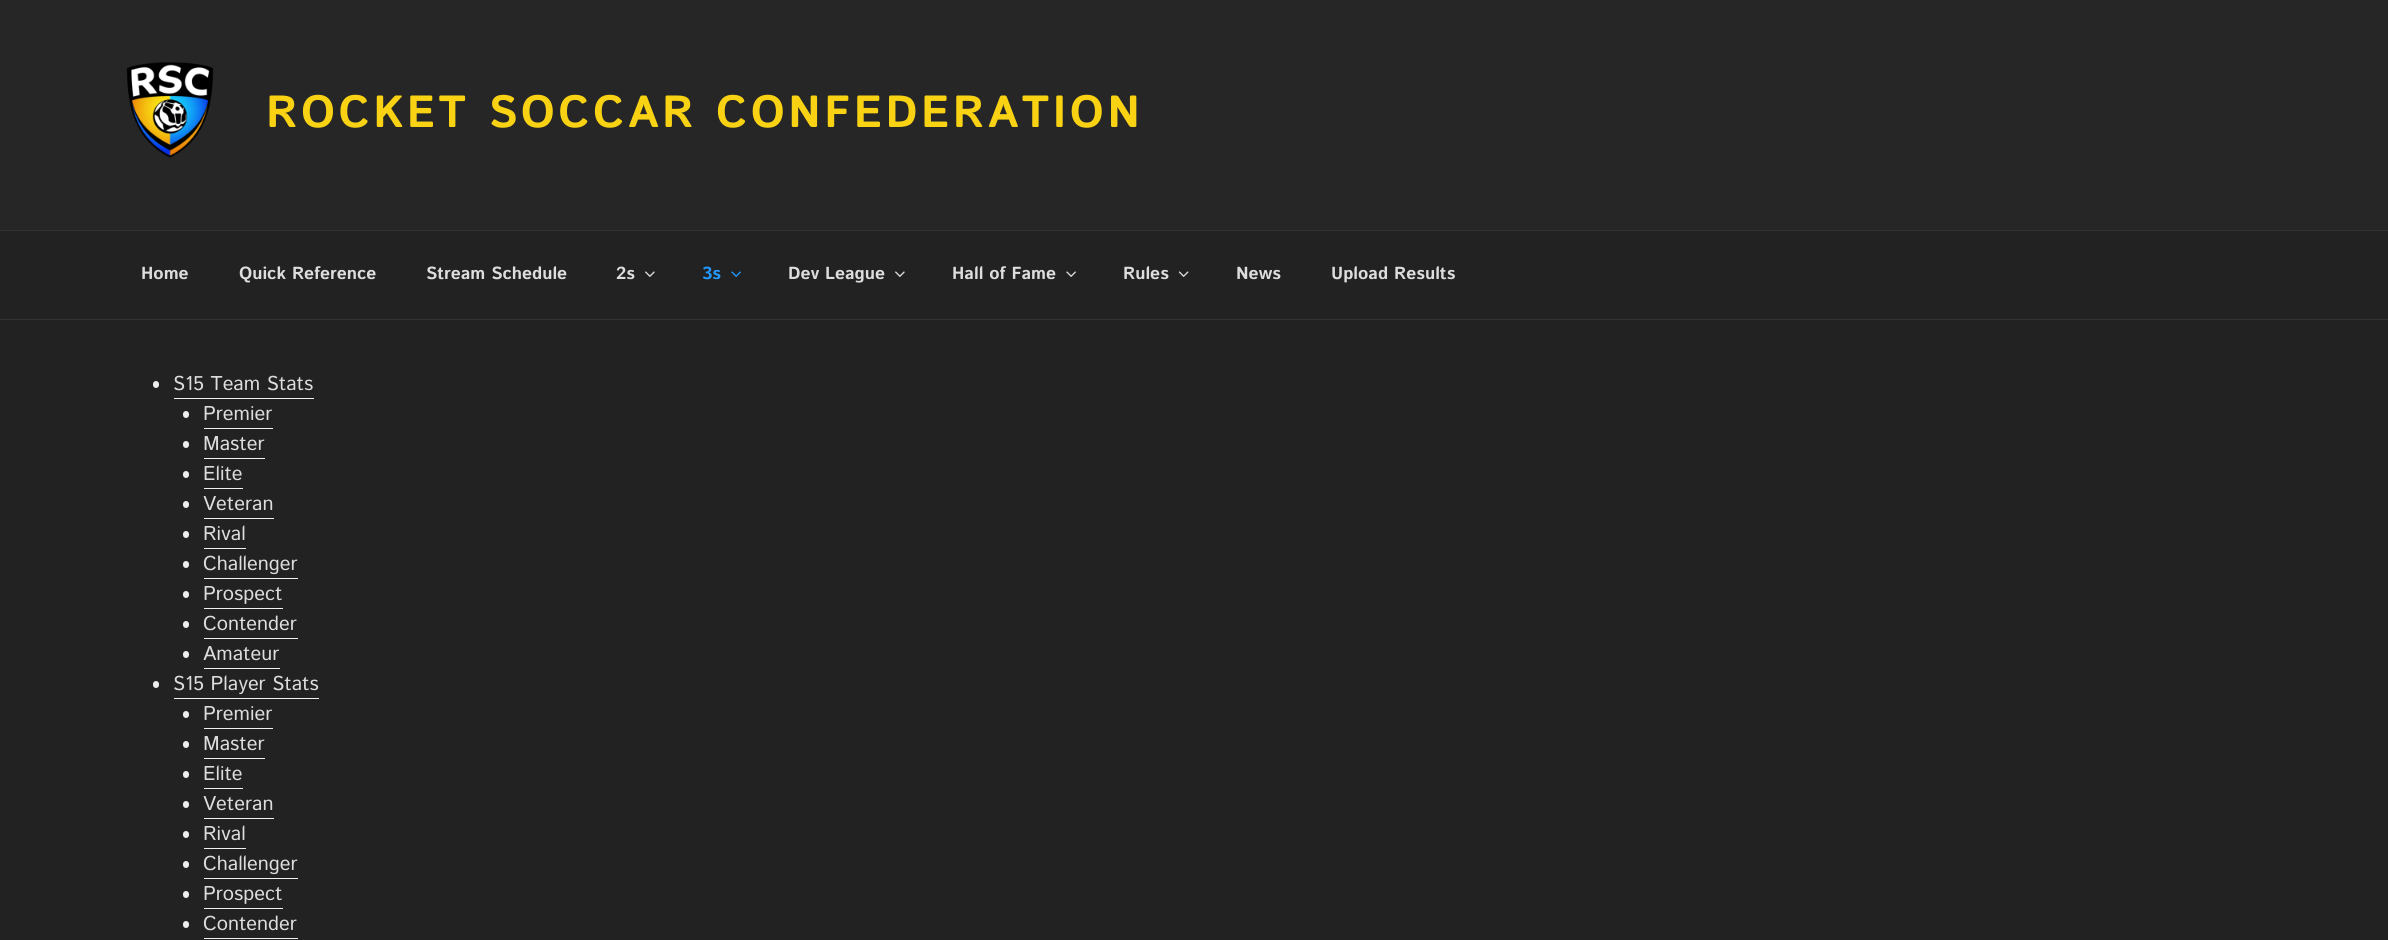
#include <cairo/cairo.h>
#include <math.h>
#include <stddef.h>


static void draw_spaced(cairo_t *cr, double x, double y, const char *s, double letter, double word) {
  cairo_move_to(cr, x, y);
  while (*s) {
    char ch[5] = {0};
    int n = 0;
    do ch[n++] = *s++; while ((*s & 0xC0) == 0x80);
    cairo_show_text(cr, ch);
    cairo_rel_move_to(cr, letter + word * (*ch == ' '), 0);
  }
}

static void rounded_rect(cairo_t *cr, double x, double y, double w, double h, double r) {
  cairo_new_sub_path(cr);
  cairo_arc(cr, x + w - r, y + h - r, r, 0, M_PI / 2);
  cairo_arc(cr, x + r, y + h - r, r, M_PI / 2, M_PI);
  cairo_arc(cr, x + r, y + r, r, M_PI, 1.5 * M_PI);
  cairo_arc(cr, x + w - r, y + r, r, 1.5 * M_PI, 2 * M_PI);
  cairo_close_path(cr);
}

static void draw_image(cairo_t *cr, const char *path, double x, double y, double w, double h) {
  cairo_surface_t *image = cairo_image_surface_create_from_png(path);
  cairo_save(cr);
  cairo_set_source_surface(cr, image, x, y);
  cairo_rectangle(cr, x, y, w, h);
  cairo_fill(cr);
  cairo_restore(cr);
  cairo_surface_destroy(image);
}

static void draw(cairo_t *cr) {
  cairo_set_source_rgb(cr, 34 / 255.0, 34 / 255.0, 34 / 255.0);
  cairo_paint(cr);
  cairo_set_source_rgb(cr, 38 / 255.0, 38 / 255.0, 38 / 255.0);
  cairo_rectangle(cr, 0, 0, 2388, 230);
  cairo_fill(cr);
  draw_image(cr, "images/1.png", 126, 62, 88, 96);
  cairo_set_source_rgb(cr, 51 / 255.0, 51 / 255.0, 51 / 255.0);
  cairo_rectangle(cr, 0, 230, 2388, 1);
  cairo_fill(cr);
  cairo_rectangle(cr, 0, 319, 2388, 1);
  cairo_fill(cr);
  draw_image(cr, "images/2.png", 645, 271, 10, 6);
  draw_image(cr, "images/3.png", 731, 271, 10, 6);
  draw_image(cr, "images/2.png", 895, 271, 10, 6);
  draw_image(cr, "images/4.png", 1066, 271, 10, 6);
  draw_image(cr, "images/5.png", 1178, 271, 11, 6);
  cairo_set_source_rgb(cr, 238 / 255.0, 238 / 255.0, 238 / 255.0);
  rounded_rect(cr, 153, 381, 6, 7, 3);
  cairo_fill(cr);
  cairo_set_source_rgb(cr, 240 / 255.0, 240 / 255.0, 240 / 255.0);
  cairo_rectangle(cr, 174, 398, 140, 1);
  cairo_fill(cr);
  cairo_set_source_rgb(cr, 238 / 255.0, 238 / 255.0, 238 / 255.0);
  rounded_rect(cr, 183, 411, 6, 7, 3);
  cairo_fill(cr);
  cairo_set_source_rgb(cr, 240 / 255.0, 240 / 255.0, 240 / 255.0);
  cairo_rectangle(cr, 204, 428, 69, 1);
  cairo_fill(cr);
  cairo_set_source_rgb(cr, 238 / 255.0, 238 / 255.0, 238 / 255.0);
  rounded_rect(cr, 183, 441, 6, 7, 3);
  cairo_fill(cr);
  cairo_set_source_rgb(cr, 240 / 255.0, 240 / 255.0, 240 / 255.0);
  cairo_rectangle(cr, 204, 458, 61, 1);
  cairo_fill(cr);
  cairo_set_source_rgb(cr, 238 / 255.0, 238 / 255.0, 238 / 255.0);
  rounded_rect(cr, 183, 471, 6, 7, 3);
  cairo_fill(cr);
  cairo_set_source_rgb(cr, 240 / 255.0, 240 / 255.0, 240 / 255.0);
  cairo_rectangle(cr, 204, 488, 39, 1);
  cairo_fill(cr);
  cairo_set_source_rgb(cr, 238 / 255.0, 238 / 255.0, 238 / 255.0);
  rounded_rect(cr, 183, 501, 6, 7, 3);
  cairo_fill(cr);
  cairo_set_source_rgb(cr, 240 / 255.0, 240 / 255.0, 240 / 255.0);
  cairo_rectangle(cr, 204, 518, 70, 1);
  cairo_fill(cr);
  cairo_set_source_rgb(cr, 238 / 255.0, 238 / 255.0, 238 / 255.0);
  rounded_rect(cr, 183, 531, 6, 7, 3);
  cairo_fill(cr);
  cairo_set_source_rgb(cr, 240 / 255.0, 240 / 255.0, 240 / 255.0);
  cairo_rectangle(cr, 204, 548, 42, 1);
  cairo_fill(cr);
  cairo_set_source_rgb(cr, 238 / 255.0, 238 / 255.0, 238 / 255.0);
  rounded_rect(cr, 183, 561, 6, 7, 3);
  cairo_fill(cr);
  cairo_set_source_rgb(cr, 240 / 255.0, 240 / 255.0, 240 / 255.0);
  cairo_rectangle(cr, 204, 578, 94, 1);
  cairo_fill(cr);
  cairo_set_source_rgb(cr, 238 / 255.0, 238 / 255.0, 238 / 255.0);
  rounded_rect(cr, 183, 591, 6, 7, 3);
  cairo_fill(cr);
  cairo_set_source_rgb(cr, 240 / 255.0, 240 / 255.0, 240 / 255.0);
  cairo_rectangle(cr, 204, 608, 79, 1);
  cairo_fill(cr);
  cairo_set_source_rgb(cr, 238 / 255.0, 238 / 255.0, 238 / 255.0);
  rounded_rect(cr, 183, 621, 6, 7, 3);
  cairo_fill(cr);
  cairo_set_source_rgb(cr, 240 / 255.0, 240 / 255.0, 240 / 255.0);
  cairo_rectangle(cr, 204, 638, 94, 1);
  cairo_fill(cr);
  cairo_set_source_rgb(cr, 238 / 255.0, 238 / 255.0, 238 / 255.0);
  rounded_rect(cr, 183, 651, 6, 7, 3);
  cairo_fill(cr);
  cairo_set_source_rgb(cr, 240 / 255.0, 240 / 255.0, 240 / 255.0);
  cairo_rectangle(cr, 204, 668, 76, 1);
  cairo_fill(cr);
  cairo_set_source_rgb(cr, 238 / 255.0, 238 / 255.0, 238 / 255.0);
  rounded_rect(cr, 153, 681, 6, 7, 3);
  cairo_fill(cr);
  cairo_set_source_rgb(cr, 240 / 255.0, 240 / 255.0, 240 / 255.0);
  cairo_rectangle(cr, 174, 698, 145, 1);
  cairo_fill(cr);
  cairo_set_source_rgb(cr, 238 / 255.0, 238 / 255.0, 238 / 255.0);
  rounded_rect(cr, 183, 711, 6, 7, 3);
  cairo_fill(cr);
  cairo_set_source_rgb(cr, 240 / 255.0, 240 / 255.0, 240 / 255.0);
  cairo_rectangle(cr, 204, 728, 69, 1);
  cairo_fill(cr);
  cairo_set_source_rgb(cr, 238 / 255.0, 238 / 255.0, 238 / 255.0);
  rounded_rect(cr, 183, 741, 6, 7, 3);
  cairo_fill(cr);
  cairo_set_source_rgb(cr, 240 / 255.0, 240 / 255.0, 240 / 255.0);
  cairo_rectangle(cr, 204, 758, 61, 1);
  cairo_fill(cr);
  cairo_set_source_rgb(cr, 238 / 255.0, 238 / 255.0, 238 / 255.0);
  rounded_rect(cr, 183, 771, 6, 7, 3);
  cairo_fill(cr);
  cairo_set_source_rgb(cr, 240 / 255.0, 240 / 255.0, 240 / 255.0);
  cairo_rectangle(cr, 204, 788, 39, 1);
  cairo_fill(cr);
  cairo_set_source_rgb(cr, 238 / 255.0, 238 / 255.0, 238 / 255.0);
  rounded_rect(cr, 183, 801, 6, 7, 3);
  cairo_fill(cr);
  cairo_set_source_rgb(cr, 240 / 255.0, 240 / 255.0, 240 / 255.0);
  cairo_rectangle(cr, 204, 818, 70, 1);
  cairo_fill(cr);
  cairo_set_source_rgb(cr, 238 / 255.0, 238 / 255.0, 238 / 255.0);
  rounded_rect(cr, 183, 831, 6, 7, 3);
  cairo_fill(cr);
  cairo_set_source_rgb(cr, 240 / 255.0, 240 / 255.0, 240 / 255.0);
  cairo_rectangle(cr, 204, 848, 42, 1);
  cairo_fill(cr);
  cairo_set_source_rgb(cr, 238 / 255.0, 238 / 255.0, 238 / 255.0);
  rounded_rect(cr, 183, 861, 6, 7, 3);
  cairo_fill(cr);
  cairo_set_source_rgb(cr, 240 / 255.0, 240 / 255.0, 240 / 255.0);
  cairo_rectangle(cr, 204, 878, 94, 1);
  cairo_fill(cr);
  cairo_set_source_rgb(cr, 238 / 255.0, 238 / 255.0, 238 / 255.0);
  rounded_rect(cr, 183, 891, 6, 7, 3);
  cairo_fill(cr);
  cairo_set_source_rgb(cr, 240 / 255.0, 240 / 255.0, 240 / 255.0);
  cairo_rectangle(cr, 204, 908, 79, 1);
  cairo_fill(cr);
  cairo_set_source_rgb(cr, 238 / 255.0, 238 / 255.0, 238 / 255.0);
  rounded_rect(cr, 183, 921, 6, 7, 3);
  cairo_fill(cr);
  cairo_set_source_rgb(cr, 240 / 255.0, 240 / 255.0, 240 / 255.0);
  cairo_rectangle(cr, 204, 938, 94, 1);
  cairo_fill(cr);
  cairo_select_font_face(cr, "Istok Web", CAIRO_FONT_SLANT_NORMAL, CAIRO_FONT_WEIGHT_BOLD);
  cairo_set_font_size(cr, 45);
  cairo_set_source_rgb(cr, 248 / 255.0, 210 / 255.0, 19 / 255.0);
  draw_spaced(cr, 266, 127, "ROCKET SOCCAR CONFEDERATION", 3.6, 0);
  cairo_set_font_size(cr, 17.5);
  cairo_set_source_rgb(cr, 221 / 255.0, 221 / 255.0, 221 / 255.0);
  cairo_move_to(cr, 141, 279);
  cairo_show_text(cr, "Home");
  cairo_move_to(cr, 239, 279);
  cairo_show_text(cr, "Quick Reference");
  cairo_move_to(cr, 426, 279);
  cairo_show_text(cr, "Stream Schedule");
  cairo_move_to(cr, 616, 279);
  cairo_show_text(cr, "2s");
  cairo_set_source_rgb(cr, 34 / 255.0, 153 / 255.0, 1);
  cairo_move_to(cr, 702, 279);
  cairo_show_text(cr, "3s");
  cairo_set_source_rgb(cr, 221 / 255.0, 221 / 255.0, 221 / 255.0);
  cairo_move_to(cr, 788, 279);
  cairo_show_text(cr, "Dev League");
  cairo_move_to(cr, 952, 279);
  cairo_show_text(cr, "Hall of Fame");
  cairo_move_to(cr, 1123, 279);
  cairo_show_text(cr, "Rules");
  cairo_move_to(cr, 1236, 279);
  cairo_show_text(cr, "News");
  cairo_move_to(cr, 1331, 279);
  cairo_show_text(cr, "Upload Results");
  cairo_select_font_face(cr, "Istok Web", CAIRO_FONT_SLANT_NORMAL, CAIRO_FONT_WEIGHT_NORMAL);
  cairo_set_font_size(cr, 20);
  cairo_move_to(cr, 173, 390);
  cairo_show_text(cr, "S15 Team Stats");
  cairo_move_to(cr, 203, 420);
  cairo_show_text(cr, "Premier");
  cairo_move_to(cr, 203, 450);
  cairo_show_text(cr, "Master");
  cairo_move_to(cr, 203, 480);
  cairo_show_text(cr, "Elite");
  cairo_move_to(cr, 203, 510);
  cairo_show_text(cr, "Veteran");
  cairo_move_to(cr, 203, 540);
  cairo_show_text(cr, "Rival");
  cairo_move_to(cr, 203, 570);
  cairo_show_text(cr, "Challenger");
  cairo_move_to(cr, 203, 600);
  cairo_show_text(cr, "Prospect");
  cairo_move_to(cr, 203, 630);
  cairo_show_text(cr, "Contender");
  cairo_move_to(cr, 203, 660);
  cairo_show_text(cr, "Amateur");
  cairo_move_to(cr, 173, 690);
  cairo_show_text(cr, "S15 Player Stats");
  cairo_move_to(cr, 203, 720);
  cairo_show_text(cr, "Premier");
  cairo_move_to(cr, 203, 750);
  cairo_show_text(cr, "Master");
  cairo_move_to(cr, 203, 780);
  cairo_show_text(cr, "Elite");
  cairo_move_to(cr, 203, 810);
  cairo_show_text(cr, "Veteran");
  cairo_move_to(cr, 203, 840);
  cairo_show_text(cr, "Rival");
  cairo_move_to(cr, 203, 870);
  cairo_show_text(cr, "Challenger");
  cairo_move_to(cr, 203, 900);
  cairo_show_text(cr, "Prospect");
  cairo_move_to(cr, 203, 930);
  cairo_show_text(cr, "Contender");
}

int main(void) {
  cairo_surface_t *surface = cairo_image_surface_create(CAIRO_FORMAT_RGB24, 2388, 940);
  cairo_t *cr = cairo_create(surface);
  cairo_font_options_t *options = cairo_font_options_create();
  cairo_font_options_set_hint_metrics(options, CAIRO_HINT_METRICS_OFF);
  cairo_font_options_set_hint_style(options, CAIRO_HINT_STYLE_NONE);
  cairo_set_font_options(cr, options);
  cairo_set_miter_limit(cr, 4);
  draw(cr);
  cairo_surface_write_to_png(surface, "out.png");
  cairo_font_options_destroy(options);
  cairo_destroy(cr);
  cairo_surface_destroy(surface);
  return 0;
}
